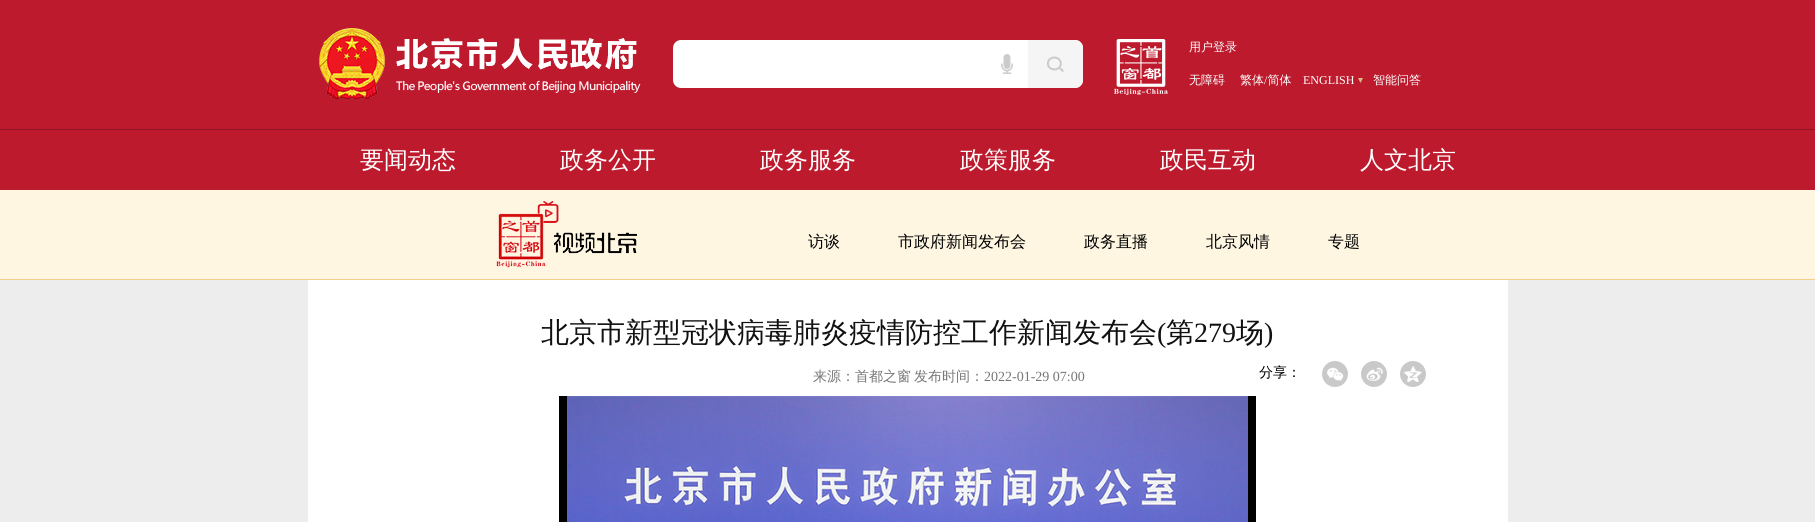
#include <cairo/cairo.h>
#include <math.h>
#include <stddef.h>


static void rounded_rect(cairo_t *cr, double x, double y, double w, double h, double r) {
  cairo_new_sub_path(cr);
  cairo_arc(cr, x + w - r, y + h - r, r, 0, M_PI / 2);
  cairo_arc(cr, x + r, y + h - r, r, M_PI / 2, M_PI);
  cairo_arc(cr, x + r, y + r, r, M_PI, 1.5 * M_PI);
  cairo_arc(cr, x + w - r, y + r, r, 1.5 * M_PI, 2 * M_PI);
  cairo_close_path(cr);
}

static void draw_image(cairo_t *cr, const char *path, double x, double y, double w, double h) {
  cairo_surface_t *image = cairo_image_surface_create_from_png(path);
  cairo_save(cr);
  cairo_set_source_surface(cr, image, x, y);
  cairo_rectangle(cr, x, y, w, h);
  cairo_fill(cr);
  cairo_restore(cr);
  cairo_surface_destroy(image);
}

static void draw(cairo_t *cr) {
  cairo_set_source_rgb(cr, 237 / 255.0, 237 / 255.0, 237 / 255.0);
  cairo_paint(cr);
  cairo_set_source_rgb(cr, 189 / 255.0, 26 / 255.0, 45 / 255.0);
  cairo_rectangle(cr, 0, 0, 1815, 129);
  cairo_fill(cr);
  cairo_set_source_rgb(cr, 143 / 255.0, 19 / 255.0, 34 / 255.0);
  cairo_rectangle(cr, 0, 129, 1815, 1);
  cairo_fill(cr);
  draw_image(cr, "images/1.png", 319, 28, 322, 71);
  cairo_set_source_rgb(cr, 1, 1, 1);
  rounded_rect(cr, 673, 40, 410, 48, 8);
  cairo_fill(cr);
  draw_image(cr, "images/2.png", 1001, 54, 12, 20);
  cairo_set_source_rgb(cr, 245 / 255.0, 245 / 255.0, 246 / 255.0);
  cairo_new_path(cr);
  cairo_move_to(cr, 1028, 40);
  cairo_line_to(cr, 1075, 40);
  cairo_curve_to(cr, 1079.5, 40, 1083, 43.5, 1083, 48);
  cairo_line_to(cr, 1083, 80);
  cairo_curve_to(cr, 1083, 84.5, 1079.5, 88, 1075, 88);
  cairo_line_to(cr, 1028, 88);
  cairo_close_path(cr);
  cairo_fill(cr);
  draw_image(cr, "images/3.png", 1047, 56, 17, 16);
  draw_image(cr, "images/4.png", 1114, 39, 54, 56);
  draw_image(cr, "images/5.png", 1358, 78, 5, 5);
  cairo_set_source_rgb(cr, 189 / 255.0, 26 / 255.0, 45 / 255.0);
  cairo_rectangle(cr, 0, 130, 1815, 60);
  cairo_fill(cr);
  cairo_set_source_rgb(cr, 1, 246 / 255.0, 226 / 255.0);
  cairo_rectangle(cr, 0, 190, 1815, 89);
  cairo_fill(cr);
  cairo_set_source_rgb(cr, 247 / 255.0, 206 / 255.0, 140 / 255.0);
  cairo_rectangle(cr, 0, 279, 1815, 1);
  cairo_fill(cr);
  draw_image(cr, "images/6.png", 496, 201, 141, 67);
  cairo_set_source_rgb(cr, 1, 1, 1);
  cairo_rectangle(cr, 308, 280, 1200, 242);
  cairo_fill(cr);
  cairo_set_source_rgb(cr, 201 / 255.0, 201 / 255.0, 201 / 255.0);
  cairo_arc(cr, 1335, 374, 13, 0, 2 * M_PI);
  cairo_fill(cr);
  draw_image(cr, "images/7.png", 1327, 367, 17, 14);
  cairo_arc(cr, 1374, 374, 13, 0, 2 * M_PI);
  cairo_fill(cr);
  draw_image(cr, "images/8.png", 1366, 367, 17, 14);
  cairo_arc(cr, 1413, 374, 13, 0, 2 * M_PI);
  cairo_fill(cr);
  draw_image(cr, "images/9.png", 1404, 366, 18, 16);
  cairo_set_source_rgb(cr, 0, 0, 0);
  cairo_rectangle(cr, 559, 396, 697, 126);
  cairo_fill(cr);
  draw_image(cr, "images/10.png", 567, 396, 681, 126);
  cairo_select_font_face(cr, "WenQuanYi Zen Hei Medium", CAIRO_FONT_SLANT_NORMAL, CAIRO_FONT_WEIGHT_NORMAL);
  cairo_set_font_size(cr, 12);
  cairo_set_source_rgb(cr, 1, 1, 1);
  cairo_move_to(cr, 1189, 51);
  cairo_show_text(cr, "用户登录");
  cairo_move_to(cr, 1189, 84);
  cairo_show_text(cr, "无障碍");
  cairo_move_to(cr, 1240, 84);
  cairo_show_text(cr, "繁体 简体");
  cairo_move_to(cr, 1373, 84);
  cairo_show_text(cr, "智能问答");
  cairo_select_font_face(cr, "Liberation Serif", CAIRO_FONT_SLANT_NORMAL, CAIRO_FONT_WEIGHT_NORMAL);
  cairo_move_to(cr, 1264, 84);
  cairo_show_text(cr, "/");
  cairo_move_to(cr, 1303, 84);
  cairo_show_text(cr, "ENGLISH");
  cairo_select_font_face(cr, "WenQuanYi Zen Hei Medium", CAIRO_FONT_SLANT_NORMAL, CAIRO_FONT_WEIGHT_NORMAL);
  cairo_set_font_size(cr, 24);
  cairo_move_to(cr, 360, 168);
  cairo_show_text(cr, "要闻动态");
  cairo_move_to(cr, 560, 168);
  cairo_show_text(cr, "政务公开");
  cairo_move_to(cr, 760, 168);
  cairo_show_text(cr, "政务服务");
  cairo_move_to(cr, 960, 168);
  cairo_show_text(cr, "政策服务");
  cairo_move_to(cr, 1160, 168);
  cairo_show_text(cr, "政民互动");
  cairo_move_to(cr, 1360, 168);
  cairo_show_text(cr, "人文北京");
  cairo_set_font_size(cr, 16);
  cairo_set_source_rgb(cr, 0, 0, 0);
  cairo_move_to(cr, 808, 247);
  cairo_show_text(cr, "访谈");
  cairo_move_to(cr, 898, 247);
  cairo_show_text(cr, "市政府新闻发布会");
  cairo_move_to(cr, 1084, 247);
  cairo_show_text(cr, "政务直播");
  cairo_move_to(cr, 1206, 247);
  cairo_show_text(cr, "北京风情");
  cairo_move_to(cr, 1328, 247);
  cairo_show_text(cr, "专题");
  cairo_set_font_size(cr, 28);
  cairo_set_source_rgb(cr, 17 / 255.0, 17 / 255.0, 17 / 255.0);
  cairo_move_to(cr, 541, 342);
  cairo_show_text(cr, "北京市新型冠状病毒肺炎疫情防控工作新闻发布会");
  cairo_select_font_face(cr, "Liberation Serif", CAIRO_FONT_SLANT_NORMAL, CAIRO_FONT_WEIGHT_NORMAL);
  cairo_move_to(cr, 1157, 342);
  cairo_show_text(cr, "(");
  cairo_select_font_face(cr, "WenQuanYi Zen Hei Medium", CAIRO_FONT_SLANT_NORMAL, CAIRO_FONT_WEIGHT_NORMAL);
  cairo_move_to(cr, 1166, 342);
  cairo_show_text(cr, "第");
  cairo_select_font_face(cr, "Liberation Serif", CAIRO_FONT_SLANT_NORMAL, CAIRO_FONT_WEIGHT_NORMAL);
  cairo_move_to(cr, 1194, 342);
  cairo_show_text(cr, "279");
  cairo_select_font_face(cr, "WenQuanYi Zen Hei Medium", CAIRO_FONT_SLANT_NORMAL, CAIRO_FONT_WEIGHT_NORMAL);
  cairo_move_to(cr, 1236, 342);
  cairo_show_text(cr, "场");
  cairo_select_font_face(cr, "Liberation Serif", CAIRO_FONT_SLANT_NORMAL, CAIRO_FONT_WEIGHT_NORMAL);
  cairo_move_to(cr, 1264, 342);
  cairo_show_text(cr, ")");
  cairo_select_font_face(cr, "WenQuanYi Zen Hei Medium", CAIRO_FONT_SLANT_NORMAL, CAIRO_FONT_WEIGHT_NORMAL);
  cairo_set_font_size(cr, 14);
  cairo_set_source_rgb(cr, 119 / 255.0, 119 / 255.0, 119 / 255.0);
  cairo_move_to(cr, 813, 381);
  cairo_show_text(cr, "来源：首都之窗");
  cairo_move_to(cr, 914, 381);
  cairo_show_text(cr, "发布时间：");
  cairo_select_font_face(cr, "Liberation Serif", CAIRO_FONT_SLANT_NORMAL, CAIRO_FONT_WEIGHT_NORMAL);
  cairo_move_to(cr, 984, 381);
  cairo_show_text(cr, "2022-01-29 07:00");
  cairo_select_font_face(cr, "WenQuanYi Zen Hei Medium", CAIRO_FONT_SLANT_NORMAL, CAIRO_FONT_WEIGHT_NORMAL);
  cairo_set_source_rgb(cr, 0, 0, 0);
  cairo_move_to(cr, 1259, 377);
  cairo_show_text(cr, "分享：");
}

int main(void) {
  cairo_surface_t *surface = cairo_image_surface_create(CAIRO_FORMAT_RGB24, 1815, 522);
  cairo_t *cr = cairo_create(surface);
  cairo_font_options_t *options = cairo_font_options_create();
  cairo_font_options_set_hint_metrics(options, CAIRO_HINT_METRICS_OFF);
  cairo_font_options_set_hint_style(options, CAIRO_HINT_STYLE_NONE);
  cairo_set_font_options(cr, options);
  cairo_set_miter_limit(cr, 4);
  draw(cr);
  cairo_surface_write_to_png(surface, "out.png");
  cairo_font_options_destroy(options);
  cairo_destroy(cr);
  cairo_surface_destroy(surface);
  return 0;
}
